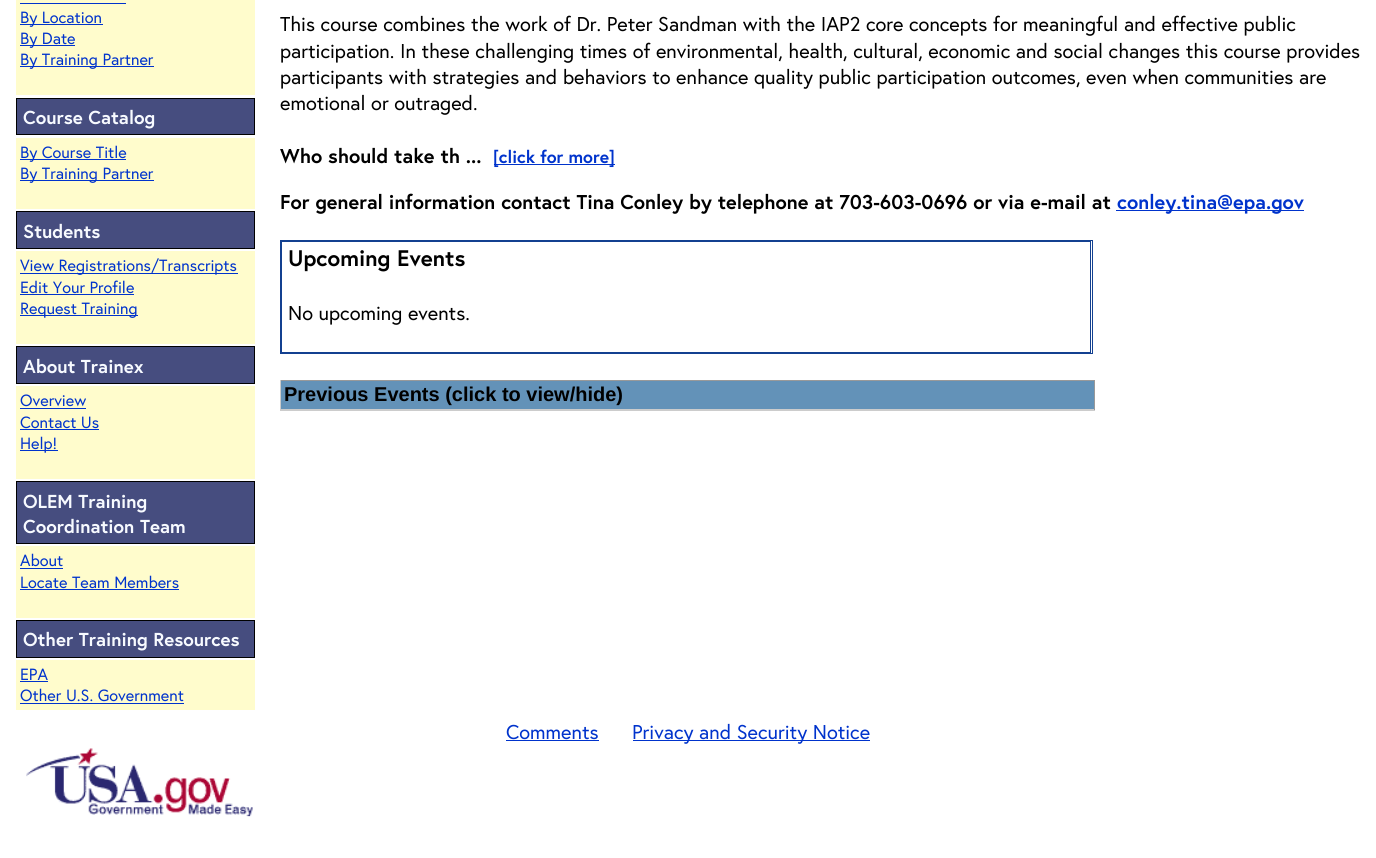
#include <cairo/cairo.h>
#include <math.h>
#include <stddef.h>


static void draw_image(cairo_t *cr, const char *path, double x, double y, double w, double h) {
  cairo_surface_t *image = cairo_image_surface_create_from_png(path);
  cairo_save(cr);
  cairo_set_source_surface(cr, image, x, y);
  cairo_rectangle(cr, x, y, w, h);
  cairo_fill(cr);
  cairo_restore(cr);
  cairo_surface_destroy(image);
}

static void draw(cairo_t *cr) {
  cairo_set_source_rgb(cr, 1, 1, 1);
  cairo_paint(cr);
  cairo_set_source_rgb(cr, 1, 252 / 255.0, 204 / 255.0);
  cairo_rectangle(cr, 16, 0, 239, 95);
  cairo_fill(cr);
  cairo_set_source_rgb(cr, 0, 51 / 255.0, 204 / 255.0);
  cairo_rectangle(cr, 20, 3, 106, 1);
  cairo_fill(cr);
  cairo_rectangle(cr, 20, 24, 83, 1);
  cairo_fill(cr);
  cairo_rectangle(cr, 20, 45, 55, 1);
  cairo_fill(cr);
  cairo_rectangle(cr, 20, 66, 134, 1);
  cairo_fill(cr);
  cairo_set_source_rgb(cr, 70 / 255.0, 77 / 255.0, 127 / 255.0);
  cairo_rectangle(cr, 16.5, 98.5, 238, 36);
  cairo_fill_preserve(cr);
  cairo_set_source_rgb(cr, 0, 0, 0);
  cairo_set_line_width(cr, 1);
  cairo_stroke(cr);
  cairo_set_source_rgb(cr, 1, 252 / 255.0, 204 / 255.0);
  cairo_rectangle(cr, 16, 138, 239, 71);
  cairo_fill(cr);
  cairo_set_source_rgb(cr, 0, 51 / 255.0, 204 / 255.0);
  cairo_rectangle(cr, 20, 159, 106, 1);
  cairo_fill(cr);
  cairo_rectangle(cr, 20, 180, 134, 1);
  cairo_fill(cr);
  cairo_set_source_rgb(cr, 70 / 255.0, 77 / 255.0, 127 / 255.0);
  cairo_rectangle(cr, 16.5, 211.5, 238, 37);
  cairo_fill_preserve(cr);
  cairo_set_source_rgb(cr, 0, 0, 0);
  cairo_stroke(cr);
  cairo_set_source_rgb(cr, 1, 252 / 255.0, 204 / 255.0);
  cairo_rectangle(cr, 16, 251, 239, 93);
  cairo_fill(cr);
  cairo_set_source_rgb(cr, 0, 51 / 255.0, 204 / 255.0);
  cairo_rectangle(cr, 20, 273, 218, 1);
  cairo_fill(cr);
  cairo_rectangle(cr, 20, 294, 114, 1);
  cairo_fill(cr);
  cairo_rectangle(cr, 20, 315, 118, 1);
  cairo_fill(cr);
  cairo_set_source_rgb(cr, 70 / 255.0, 77 / 255.0, 127 / 255.0);
  cairo_rectangle(cr, 16.5, 346.5, 238, 37);
  cairo_fill_preserve(cr);
  cairo_set_source_rgb(cr, 0, 0, 0);
  cairo_stroke(cr);
  cairo_set_source_rgb(cr, 1, 252 / 255.0, 204 / 255.0);
  cairo_rectangle(cr, 16, 386, 239, 93);
  cairo_fill(cr);
  cairo_set_source_rgb(cr, 0, 51 / 255.0, 204 / 255.0);
  cairo_rectangle(cr, 20, 408, 66, 1);
  cairo_fill(cr);
  cairo_rectangle(cr, 20, 429, 79, 1);
  cairo_fill(cr);
  cairo_rectangle(cr, 20, 450, 38, 1);
  cairo_fill(cr);
  cairo_set_source_rgb(cr, 70 / 255.0, 77 / 255.0, 127 / 255.0);
  cairo_rectangle(cr, 16.5, 481.5, 238, 62);
  cairo_fill_preserve(cr);
  cairo_set_source_rgb(cr, 0, 0, 0);
  cairo_stroke(cr);
  cairo_set_source_rgb(cr, 1, 252 / 255.0, 204 / 255.0);
  cairo_rectangle(cr, 16, 546, 239, 72);
  cairo_fill(cr);
  cairo_set_source_rgb(cr, 0, 51 / 255.0, 204 / 255.0);
  cairo_rectangle(cr, 20, 568, 43, 1);
  cairo_fill(cr);
  cairo_rectangle(cr, 20, 589, 159, 1);
  cairo_fill(cr);
  cairo_set_source_rgb(cr, 70 / 255.0, 77 / 255.0, 127 / 255.0);
  cairo_rectangle(cr, 16.5, 620.5, 238, 37);
  cairo_fill_preserve(cr);
  cairo_set_source_rgb(cr, 0, 0, 0);
  cairo_stroke(cr);
  cairo_set_source_rgb(cr, 1, 252 / 255.0, 204 / 255.0);
  cairo_rectangle(cr, 16, 660, 239, 50);
  cairo_fill(cr);
  cairo_set_source_rgb(cr, 0, 51 / 255.0, 204 / 255.0);
  cairo_rectangle(cr, 20, 681, 28, 1);
  cairo_fill(cr);
  cairo_rectangle(cr, 20, 703, 164, 1);
  cairo_fill(cr);
  cairo_rectangle(cr, 494, 164, 121, 1);
  cairo_fill(cr);
  cairo_rectangle(cr, 1116, 210, 188, 1);
  cairo_fill(cr);
  cairo_rectangle(cr, 280.5, 240.5, 812, 113);
  cairo_set_source_rgb(cr, 19 / 255.0, 64 / 255.0, 144 / 255.0);
  cairo_stroke(cr);
  cairo_rectangle(cr, 281.5, 241.5, 809, 111);
  cairo_stroke(cr);
  cairo_set_source_rgb(cr, 153 / 255.0, 153 / 255.0, 153 / 255.0);
  cairo_rectangle(cr, 280, 380, 815, 1);
  cairo_fill(cr);
  cairo_rectangle(cr, 1094, 380, 1, 31);
  cairo_fill(cr);
  cairo_set_source_rgb(cr, 204 / 255.0, 204 / 255.0, 204 / 255.0);
  cairo_rectangle(cr, 280, 410, 815, 1);
  cairo_fill(cr);
  cairo_rectangle(cr, 280, 380, 1, 31);
  cairo_fill(cr);
  cairo_set_source_rgb(cr, 99 / 255.0, 146 / 255.0, 184 / 255.0);
  cairo_rectangle(cr, 281, 381, 813, 28);
  cairo_fill(cr);
  cairo_set_source_rgb(cr, 204 / 255.0, 204 / 255.0, 204 / 255.0);
  cairo_rectangle(cr, 281, 409, 813, 1);
  cairo_fill(cr);
  cairo_set_source_rgb(cr, 0, 51 / 255.0, 204 / 255.0);
  cairo_rectangle(cr, 506, 740, 93, 1);
  cairo_fill(cr);
  cairo_rectangle(cr, 633, 740, 237, 1);
  cairo_fill(cr);
  draw_image(cr, "images/1.png", 26, 748, 227, 69);
  cairo_select_font_face(cr, "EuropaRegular", CAIRO_FONT_SLANT_NORMAL, CAIRO_FONT_WEIGHT_NORMAL);
  cairo_set_font_size(cr, 16.25);
  cairo_move_to(cr, 20, 23);
  cairo_show_text(cr, "By Location");
  cairo_move_to(cr, 20, 44);
  cairo_show_text(cr, "By Date");
  cairo_move_to(cr, 20, 65);
  cairo_show_text(cr, "By Training Partner");
  cairo_select_font_face(cr, "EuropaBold", CAIRO_FONT_SLANT_NORMAL, CAIRO_FONT_WEIGHT_BOLD);
  cairo_set_font_size(cr, 18.75);
  cairo_set_source_rgb(cr, 247 / 255.0, 250 / 255.0, 1);
  cairo_move_to(cr, 23, 124);
  cairo_show_text(cr, "Course Catalog");
  cairo_select_font_face(cr, "EuropaRegular", CAIRO_FONT_SLANT_NORMAL, CAIRO_FONT_WEIGHT_NORMAL);
  cairo_set_font_size(cr, 16.25);
  cairo_set_source_rgb(cr, 0, 51 / 255.0, 204 / 255.0);
  cairo_move_to(cr, 20, 158);
  cairo_show_text(cr, "By Course Title");
  cairo_move_to(cr, 20, 179);
  cairo_show_text(cr, "By Training Partner");
  cairo_select_font_face(cr, "EuropaBold", CAIRO_FONT_SLANT_NORMAL, CAIRO_FONT_WEIGHT_BOLD);
  cairo_set_font_size(cr, 18.75);
  cairo_set_source_rgb(cr, 247 / 255.0, 250 / 255.0, 1);
  cairo_move_to(cr, 23, 238);
  cairo_show_text(cr, "Students");
  cairo_select_font_face(cr, "EuropaRegular", CAIRO_FONT_SLANT_NORMAL, CAIRO_FONT_WEIGHT_NORMAL);
  cairo_set_font_size(cr, 16.25);
  cairo_set_source_rgb(cr, 0, 51 / 255.0, 204 / 255.0);
  cairo_move_to(cr, 20, 271);
  cairo_show_text(cr, "View Registrations/Transcripts");
  cairo_move_to(cr, 20, 293);
  cairo_show_text(cr, "Edit Your Profile");
  cairo_move_to(cr, 20, 314);
  cairo_show_text(cr, "Request Training");
  cairo_select_font_face(cr, "EuropaBold", CAIRO_FONT_SLANT_NORMAL, CAIRO_FONT_WEIGHT_BOLD);
  cairo_set_font_size(cr, 18.75);
  cairo_set_source_rgb(cr, 247 / 255.0, 250 / 255.0, 1);
  cairo_move_to(cr, 23, 373);
  cairo_show_text(cr, "About Trainex");
  cairo_select_font_face(cr, "EuropaRegular", CAIRO_FONT_SLANT_NORMAL, CAIRO_FONT_WEIGHT_NORMAL);
  cairo_set_font_size(cr, 16.25);
  cairo_set_source_rgb(cr, 0, 51 / 255.0, 204 / 255.0);
  cairo_move_to(cr, 20, 406);
  cairo_show_text(cr, "Overview");
  cairo_move_to(cr, 20, 428);
  cairo_show_text(cr, "Contact Us");
  cairo_move_to(cr, 20, 449);
  cairo_show_text(cr, "Help!");
  cairo_select_font_face(cr, "EuropaBold", CAIRO_FONT_SLANT_NORMAL, CAIRO_FONT_WEIGHT_BOLD);
  cairo_set_font_size(cr, 18.75);
  cairo_set_source_rgb(cr, 247 / 255.0, 250 / 255.0, 1);
  cairo_move_to(cr, 23, 508);
  cairo_show_text(cr, "OLEM Training");
  cairo_move_to(cr, 23, 533);
  cairo_show_text(cr, "Coordination Team");
  cairo_select_font_face(cr, "EuropaRegular", CAIRO_FONT_SLANT_NORMAL, CAIRO_FONT_WEIGHT_NORMAL);
  cairo_set_font_size(cr, 16.25);
  cairo_set_source_rgb(cr, 0, 51 / 255.0, 204 / 255.0);
  cairo_move_to(cr, 20, 566);
  cairo_show_text(cr, "About");
  cairo_move_to(cr, 20, 588);
  cairo_show_text(cr, "Locate Team Members");
  cairo_select_font_face(cr, "EuropaBold", CAIRO_FONT_SLANT_NORMAL, CAIRO_FONT_WEIGHT_BOLD);
  cairo_set_font_size(cr, 18.75);
  cairo_set_source_rgb(cr, 247 / 255.0, 250 / 255.0, 1);
  cairo_move_to(cr, 23, 646);
  cairo_show_text(cr, "Other Training Resources");
  cairo_select_font_face(cr, "EuropaRegular", CAIRO_FONT_SLANT_NORMAL, CAIRO_FONT_WEIGHT_NORMAL);
  cairo_set_font_size(cr, 16.25);
  cairo_set_source_rgb(cr, 0, 51 / 255.0, 204 / 255.0);
  cairo_move_to(cr, 20, 680);
  cairo_show_text(cr, "EPA");
  cairo_move_to(cr, 20, 701);
  cairo_show_text(cr, "Other U.S. Government");
  cairo_set_font_size(cr, 20);
  cairo_set_source_rgb(cr, 0, 0, 0);
  cairo_move_to(cr, 280, 31);
  cairo_show_text(cr, "This course combines the work of Dr. Peter Sandman with the IAP2 core concepts for meaningful and effective public");
  cairo_move_to(cr, 280, 58);
  cairo_show_text(cr, "participation. In these challenging times of environmental, health, cultural, economic and social changes this course provides");
  cairo_move_to(cr, 280, 84);
  cairo_show_text(cr, "participants with strategies and behaviors to enhance quality public participation outcomes, even when communities are");
  cairo_move_to(cr, 280, 110);
  cairo_show_text(cr, "emotional or outraged.");
  cairo_select_font_face(cr, "EuropaBold", CAIRO_FONT_SLANT_NORMAL, CAIRO_FONT_WEIGHT_BOLD);
  cairo_move_to(cr, 280, 163);
  cairo_show_text(cr, "Who should take th ...");
  cairo_set_font_size(cr, 17.5);
  cairo_set_source_rgb(cr, 0, 51 / 255.0, 204 / 255.0);
  cairo_move_to(cr, 493, 163);
  cairo_show_text(cr, "[click for more]");
  cairo_set_font_size(cr, 20);
  cairo_set_source_rgb(cr, 0, 0, 0);
  cairo_move_to(cr, 280, 209);
  cairo_show_text(cr, "For general information contact Tina Conley by telephone at 703-603-0696 or via e-mail at");
  cairo_set_source_rgb(cr, 0, 51 / 255.0, 204 / 255.0);
  cairo_move_to(cr, 1117, 209);
  cairo_show_text(cr, "conley.tina@epa.gov");
  cairo_set_font_size(cr, 22.5);
  cairo_set_source_rgb(cr, 0, 0, 0);
  cairo_move_to(cr, 288, 266);
  cairo_show_text(cr, "Upcoming Events");
  cairo_select_font_face(cr, "EuropaRegular", CAIRO_FONT_SLANT_NORMAL, CAIRO_FONT_WEIGHT_NORMAL);
  cairo_set_font_size(cr, 20);
  cairo_move_to(cr, 288, 320);
  cairo_show_text(cr, "No upcoming events.");
  cairo_select_font_face(cr, "Liberation Sans", CAIRO_FONT_SLANT_NORMAL, CAIRO_FONT_WEIGHT_BOLD);
  cairo_move_to(cr, 284, 401);
  cairo_show_text(cr, "Previous Events (click to view/hide)");
  cairo_select_font_face(cr, "EuropaRegular", CAIRO_FONT_SLANT_NORMAL, CAIRO_FONT_WEIGHT_NORMAL);
  cairo_set_source_rgb(cr, 0, 51 / 255.0, 204 / 255.0);
  cairo_move_to(cr, 506, 739);
  cairo_show_text(cr, "Comments");
  cairo_move_to(cr, 632, 739);
  cairo_show_text(cr, "Privacy and Security Notice");
}

int main(void) {
  cairo_surface_t *surface = cairo_image_surface_create(CAIRO_FORMAT_RGB24, 1376, 858);
  cairo_t *cr = cairo_create(surface);
  cairo_font_options_t *options = cairo_font_options_create();
  cairo_font_options_set_hint_metrics(options, CAIRO_HINT_METRICS_OFF);
  cairo_font_options_set_hint_style(options, CAIRO_HINT_STYLE_NONE);
  cairo_set_font_options(cr, options);
  cairo_set_miter_limit(cr, 4);
  draw(cr);
  cairo_surface_write_to_png(surface, "out.png");
  cairo_font_options_destroy(options);
  cairo_destroy(cr);
  cairo_surface_destroy(surface);
  return 0;
}
